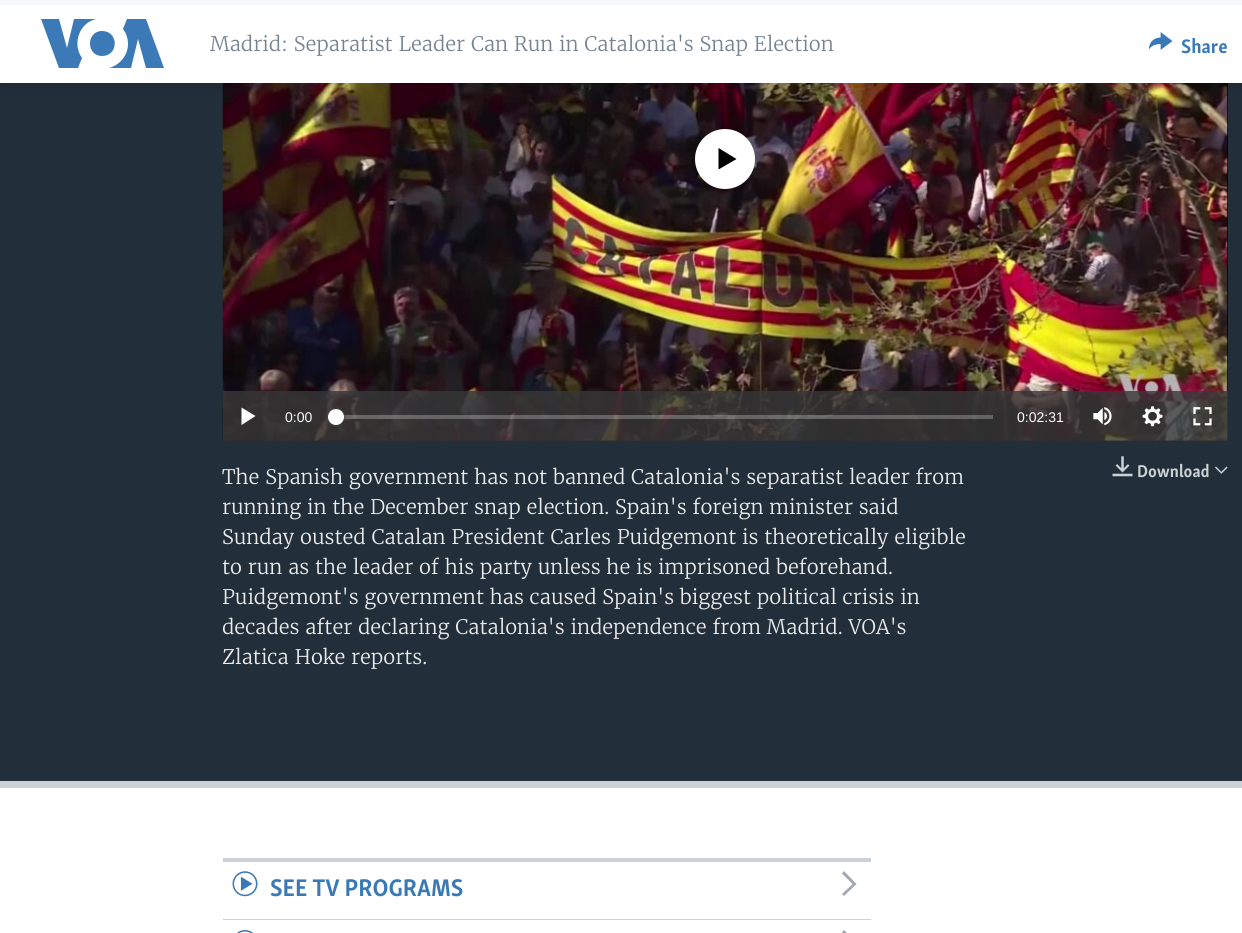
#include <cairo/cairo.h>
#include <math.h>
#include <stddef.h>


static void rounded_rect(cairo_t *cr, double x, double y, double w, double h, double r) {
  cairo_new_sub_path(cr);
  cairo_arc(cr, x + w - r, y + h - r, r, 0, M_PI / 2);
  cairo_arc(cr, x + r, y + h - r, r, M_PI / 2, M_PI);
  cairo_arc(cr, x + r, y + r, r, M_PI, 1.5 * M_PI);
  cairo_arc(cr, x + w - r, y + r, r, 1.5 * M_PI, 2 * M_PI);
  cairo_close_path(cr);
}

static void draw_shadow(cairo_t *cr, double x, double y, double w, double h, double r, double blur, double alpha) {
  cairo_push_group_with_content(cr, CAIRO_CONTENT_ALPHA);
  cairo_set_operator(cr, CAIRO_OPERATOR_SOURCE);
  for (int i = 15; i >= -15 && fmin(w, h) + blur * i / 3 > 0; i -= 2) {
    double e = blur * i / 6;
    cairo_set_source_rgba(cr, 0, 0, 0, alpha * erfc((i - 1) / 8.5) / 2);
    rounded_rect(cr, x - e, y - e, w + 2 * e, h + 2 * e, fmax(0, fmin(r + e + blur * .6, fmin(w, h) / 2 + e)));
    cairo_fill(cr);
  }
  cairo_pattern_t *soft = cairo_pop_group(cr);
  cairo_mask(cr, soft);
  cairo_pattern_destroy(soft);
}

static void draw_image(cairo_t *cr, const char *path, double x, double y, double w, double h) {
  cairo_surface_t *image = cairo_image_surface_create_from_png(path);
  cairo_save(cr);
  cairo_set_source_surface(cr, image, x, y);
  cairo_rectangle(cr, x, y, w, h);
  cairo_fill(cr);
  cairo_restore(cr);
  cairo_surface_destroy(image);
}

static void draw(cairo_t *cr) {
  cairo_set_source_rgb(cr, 1, 1, 1);
  cairo_paint(cr);
  cairo_set_source_rgb(cr, 34 / 255.0, 47 / 255.0, 58 / 255.0);
  cairo_rectangle(cr, 0, 83, 1242, 698);
  cairo_fill(cr);
  cairo_set_source_rgb(cr, 0, 0, 0);
  cairo_rectangle(cr, 223, 83, 1005, 358);
  cairo_fill(cr);
  draw_image(cr, "images/2.png", 222, 83, 1006, 358);
  cairo_set_source_rgb(cr, 0, 0, 0);
  draw_shadow(cr, 0, 6, 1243, 83, 0, 6, 0.1);
  cairo_set_source_rgb(cr, 1, 1, 1);
  cairo_rectangle(cr, 0, 5, 1242, 78);
  cairo_fill(cr);
  cairo_set_source_rgb(cr, 246 / 255.0, 247 / 255.0, 248 / 255.0);
  cairo_rectangle(cr, 0, 0, 1242, 5);
  cairo_fill(cr);
  cairo_set_source_rgb(cr, 59 / 255.0, 121 / 255.0, 183 / 255.0);
  cairo_new_path(cr);
  cairo_move_to(cr, 82, 58);
  cairo_line_to(cr, 78, 68);
  cairo_line_to(cr, 59, 68);
  cairo_line_to(cr, 41, 19);
  cairo_line_to(cr, 59, 19);
  cairo_line_to(cr, 67, 48);
  cairo_line_to(cr, 74, 19);
  cairo_line_to(cr, 96, 19);
  cairo_curve_to(cr, 79, 23, 72, 44, 82, 58);
  cairo_close_path(cr);
  cairo_move_to(cr, 102, 31);
  cairo_curve_to(cr, 86, 31, 86, 56, 102, 56);
  cairo_curve_to(cr, 119, 56, 119, 31, 102, 31);
  cairo_close_path(cr);
  cairo_move_to(cr, 128, 44);
  cairo_curve_to(cr, 128, 55, 120, 65, 109, 68);
  cairo_line_to(cr, 131, 68);
  cairo_line_to(cr, 138, 39);
  cairo_line_to(cr, 146, 68);
  cairo_line_to(cr, 164, 68);
  cairo_line_to(cr, 146, 19);
  cairo_line_to(cr, 127, 19);
  cairo_line_to(cr, 123, 29);
  cairo_curve_to(cr, 126, 33, 128, 38, 128, 44);
  cairo_close_path(cr);
  cairo_fill(cr);
  draw_image(cr, "images/1.png", 1148, 32, 25, 18);
  cairo_set_source_rgb(cr, 203 / 255.0, 209 / 255.0, 214 / 255.0);
  cairo_rectangle(cr, 0, 781, 1242, 7);
  cairo_fill(cr);
  cairo_set_source_rgb(cr, 1, 1, 1);
  cairo_arc(cr, 725, 159, 30, 0, 2 * M_PI);
  cairo_fill(cr);
  cairo_set_source_rgb(cr, 0, 0, 0);
  cairo_new_path(cr);
  cairo_move_to(cr, 718.5, 169.5);
  cairo_line_to(cr, 736.5, 159);
  cairo_line_to(cr, 718.5, 148);
  cairo_close_path(cr);
  cairo_fill(cr);
  cairo_set_source_rgba(cr, 56 / 255.0, 56 / 255.0, 56 / 255.0, 0.8);
  cairo_rectangle(cr, 223, 391, 1005, 50);
  cairo_fill(cr);
  cairo_set_source_rgb(cr, 1, 1, 1);
  cairo_new_path(cr);
  cairo_move_to(cr, 241.5, 425);
  cairo_line_to(cr, 255.5, 416);
  cairo_line_to(cr, 241.5, 407.5);
  cairo_close_path(cr);
  cairo_fill(cr);
  cairo_set_source_rgba(cr, 1, 1, 1, 0.25);
  cairo_rectangle(cr, 336, 415, 657, 4);
  cairo_fill(cr);
  cairo_set_source_rgb(cr, 65 / 255.0, 65 / 255.0, 68 / 255.0);
  draw_shadow(cr, 328, 409, 16, 16, 8, 2, 1);
  cairo_set_source_rgb(cr, 1, 1, 1);
  cairo_arc(cr, 336, 417, 8, 0, 2 * M_PI);
  cairo_fill(cr);
  draw_image(cr, "images/3.png", 1093, 407, 19, 19);
  draw_image(cr, "images/4.png", 1142, 406, 21, 21);
  draw_image(cr, "images/5.png", 1193, 407, 19, 19);
  draw_image(cr, "images/6.png", 1112, 456, 21, 21);
  draw_image(cr, "images/7.png", 1215, 466, 13, 8);
  cairo_set_source_rgb(cr, 203 / 255.0, 209 / 255.0, 214 / 255.0);
  cairo_rectangle(cr, 223, 858, 648, 4);
  cairo_fill(cr);
  cairo_rectangle(cr, 223, 919, 648, 1);
  cairo_fill(cr);
  draw_image(cr, "images/8.png", 232, 871, 26, 26);
  cairo_set_source_rgb(cr, 161 / 255.0, 170 / 255.0, 180 / 255.0);
  cairo_new_path(cr);
  cairo_move_to(cr, 844, 896);
  cairo_line_to(cr, 856.5, 884);
  cairo_line_to(cr, 844, 871);
  cairo_line_to(cr, 842, 873.5);
  cairo_line_to(cr, 852.5, 884);
  cairo_line_to(cr, 842, 894);
  cairo_close_path(cr);
  cairo_fill(cr);
  draw_image(cr, "images/9.png", 237, 930, 16, 3);
  draw_image(cr, "images/10.png", 842, 930, 5, 3);
  cairo_select_font_face(cr, "Merriweather Light", CAIRO_FONT_SLANT_NORMAL, CAIRO_FONT_WEIGHT_NORMAL);
  cairo_set_font_size(cr, 20);
  cairo_set_source_rgb(cr, 118 / 255.0, 132 / 255.0, 146 / 255.0);
  cairo_move_to(cr, 210, 51);
  cairo_show_text(cr, "Madrid: Separatist Leader Can Run in Catalonia's Snap Election");
  cairo_select_font_face(cr, "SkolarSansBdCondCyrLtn", CAIRO_FONT_SLANT_NORMAL, CAIRO_FONT_WEIGHT_BOLD);
  cairo_set_source_rgb(cr, 58 / 255.0, 121 / 255.0, 183 / 255.0);
  cairo_move_to(cr, 1181, 53);
  cairo_show_text(cr, "Share");
  cairo_select_font_face(cr, "Liberation Sans", CAIRO_FONT_SLANT_NORMAL, CAIRO_FONT_WEIGHT_NORMAL);
  cairo_set_font_size(cr, 14);
  cairo_set_source_rgb(cr, 1, 1, 1);
  cairo_move_to(cr, 285, 422);
  cairo_show_text(cr, "0:00");
  cairo_move_to(cr, 1017, 422);
  cairo_show_text(cr, "0:02:31");
  cairo_select_font_face(cr, "Merriweather Light", CAIRO_FONT_SLANT_NORMAL, CAIRO_FONT_WEIGHT_NORMAL);
  cairo_set_font_size(cr, 20);
  cairo_set_source_rgb(cr, 235 / 255.0, 235 / 255.0, 235 / 255.0);
  cairo_move_to(cr, 222, 484);
  cairo_show_text(cr, "The Spanish government has not banned Catalonia's separatist leader from");
  cairo_move_to(cr, 222, 514);
  cairo_show_text(cr, "running in the December snap election. Spain's foreign minister said");
  cairo_move_to(cr, 222, 544);
  cairo_show_text(cr, "Sunday ousted Catalan President Carles Puidgemont is theoretically eligible");
  cairo_move_to(cr, 222, 574);
  cairo_show_text(cr, "to run as the leader of his party unless he is imprisoned beforehand.");
  cairo_move_to(cr, 222, 604);
  cairo_show_text(cr, "Puidgemont's government has caused Spain's biggest political crisis in");
  cairo_move_to(cr, 222, 634);
  cairo_show_text(cr, "decades after declaring Catalonia's independence from Madrid. VOA's");
  cairo_move_to(cr, 222, 664);
  cairo_show_text(cr, "Zlatica Hoke reports.");
  cairo_select_font_face(cr, "SkolarSansBdCondCyrLtn", CAIRO_FONT_SLANT_NORMAL, CAIRO_FONT_WEIGHT_BOLD);
  cairo_set_font_size(cr, 17.5);
  cairo_set_source_rgb(cr, 203 / 255.0, 209 / 255.0, 214 / 255.0);
  cairo_move_to(cr, 1137, 477);
  cairo_show_text(cr, "Download");
  cairo_set_font_size(cr, 24.75);
  cairo_set_source_rgb(cr, 58 / 255.0, 121 / 255.0, 183 / 255.0);
  cairo_move_to(cr, 270, 896);
  cairo_show_text(cr, "SEE TV PROGRAMS");
}

int main(void) {
  cairo_surface_t *surface = cairo_image_surface_create(CAIRO_FORMAT_RGB24, 1242, 933);
  cairo_t *cr = cairo_create(surface);
  cairo_font_options_t *options = cairo_font_options_create();
  cairo_font_options_set_hint_metrics(options, CAIRO_HINT_METRICS_OFF);
  cairo_font_options_set_hint_style(options, CAIRO_HINT_STYLE_NONE);
  cairo_set_font_options(cr, options);
  cairo_set_miter_limit(cr, 4);
  draw(cr);
  cairo_surface_write_to_png(surface, "out.png");
  cairo_font_options_destroy(options);
  cairo_destroy(cr);
  cairo_surface_destroy(surface);
  return 0;
}
